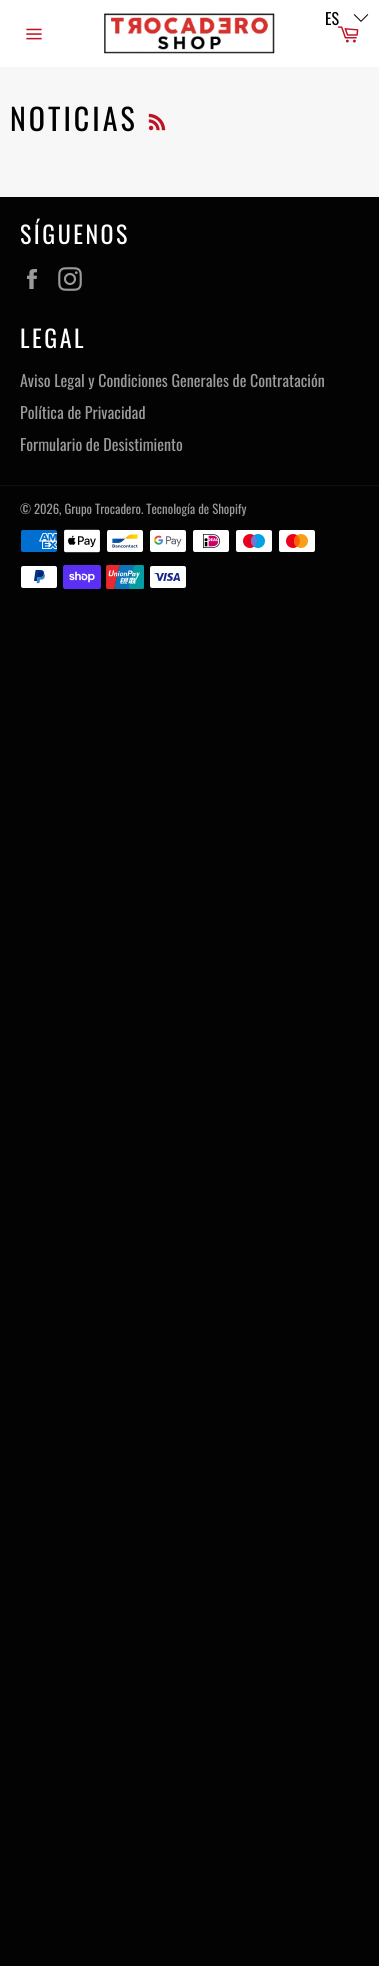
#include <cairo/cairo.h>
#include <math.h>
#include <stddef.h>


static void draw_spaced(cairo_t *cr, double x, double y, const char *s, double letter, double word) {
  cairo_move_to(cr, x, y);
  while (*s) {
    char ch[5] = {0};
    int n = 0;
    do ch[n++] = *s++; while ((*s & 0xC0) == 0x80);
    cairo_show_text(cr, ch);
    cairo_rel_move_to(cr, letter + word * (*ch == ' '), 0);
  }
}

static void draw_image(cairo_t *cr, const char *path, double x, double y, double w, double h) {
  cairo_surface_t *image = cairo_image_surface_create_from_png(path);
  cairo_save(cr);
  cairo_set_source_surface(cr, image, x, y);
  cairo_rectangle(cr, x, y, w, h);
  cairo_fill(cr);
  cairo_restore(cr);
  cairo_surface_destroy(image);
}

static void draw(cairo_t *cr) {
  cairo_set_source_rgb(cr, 3 / 255.0, 3 / 255.0, 3 / 255.0);
  cairo_paint(cr);
  cairo_set_source_rgb(cr, 247 / 255.0, 247 / 255.0, 247 / 255.0);
  cairo_rectangle(cr, 0, 67, 379, 130);
  cairo_fill(cr);
  cairo_set_source_rgb(cr, 1, 1, 1);
  cairo_rectangle(cr, 0, 0, 379, 67);
  cairo_fill(cr);
  draw_image(cr, "images/1.png", 26, 28, 16, 12);
  draw_image(cr, "images/2.png", 104, 13, 171, 41);
  draw_image(cr, "images/3.png", 337, 26, 22, 17);
  draw_image(cr, "images/4.png", 353, 14, 16, 8);
  draw_image(cr, "images/5.png", 148, 113, 18, 18);
  draw_image(cr, "images/6.png", 27, 269, 10, 20);
  draw_image(cr, "images/7.png", 58, 267, 24, 24);
  cairo_set_source_rgb(cr, 16 / 255.0, 16 / 255.0, 16 / 255.0);
  cairo_rectangle(cr, 0, 485, 379, 1);
  cairo_fill(cr);
  draw_image(cr, "images/8.png", 21, 530, 36, 22);
  draw_image(cr, "images/9.png", 64, 529, 36, 24);
  draw_image(cr, "images/10.png", 107, 530, 36, 22);
  draw_image(cr, "images/11.png", 150, 530, 36, 22);
  draw_image(cr, "images/12.png", 193, 530, 36, 22);
  draw_image(cr, "images/13.png", 236, 530, 36, 22);
  draw_image(cr, "images/14.png", 279, 530, 36, 22);
  draw_image(cr, "images/15.png", 21, 566, 36, 22);
  draw_image(cr, "images/16.png", 63, 565, 38, 24);
  draw_image(cr, "images/17.png", 106, 565, 38, 24);
  draw_image(cr, "images/18.png", 150, 566, 36, 22);
  cairo_select_font_face(cr, "Oswald", CAIRO_FONT_SLANT_NORMAL, CAIRO_FONT_WEIGHT_NORMAL);
  cairo_set_font_size(cr, 16);
  cairo_set_source_rgb(cr, 0, 0, 0);
  cairo_move_to(cr, 325, 25);
  cairo_show_text(cr, "ES");
  cairo_set_font_size(cr, 30);
  draw_spaced(cr, 10, 131, "NOTICIAS", 3, 0);
  cairo_set_font_size(cr, 24);
  cairo_set_source_rgb(cr, 1, 1, 1);
  draw_spaced(cr, 20, 244, "SÍGUENOS", 2.5, 0);
  draw_spaced(cr, 20, 348, "LEGAL", 2.5, 0);
  cairo_set_font_size(cr, 16);
  cairo_set_source_rgb(cr, 154 / 255.0, 154 / 255.0, 154 / 255.0);
  cairo_move_to(cr, 20, 387);
  cairo_show_text(cr, "Aviso Legal y Condiciones Generales de Contratación");
  cairo_move_to(cr, 20, 419);
  cairo_show_text(cr, "Política de Privacidad");
  cairo_move_to(cr, 20, 451);
  cairo_show_text(cr, "Formulario de Desistimiento");
  cairo_set_font_size(cr, 12.75);
  cairo_move_to(cr, 20, 514);
  cairo_show_text(cr, "© 2026, Grupo Trocadero. Tecnología de Shopify");
}

int main(void) {
  cairo_surface_t *surface = cairo_image_surface_create(CAIRO_FORMAT_RGB24, 379, 1966);
  cairo_t *cr = cairo_create(surface);
  cairo_font_options_t *options = cairo_font_options_create();
  cairo_font_options_set_hint_metrics(options, CAIRO_HINT_METRICS_OFF);
  cairo_font_options_set_hint_style(options, CAIRO_HINT_STYLE_NONE);
  cairo_set_font_options(cr, options);
  cairo_set_miter_limit(cr, 4);
  draw(cr);
  cairo_surface_write_to_png(surface, "out.png");
  cairo_font_options_destroy(options);
  cairo_destroy(cr);
  cairo_surface_destroy(surface);
  return 0;
}
